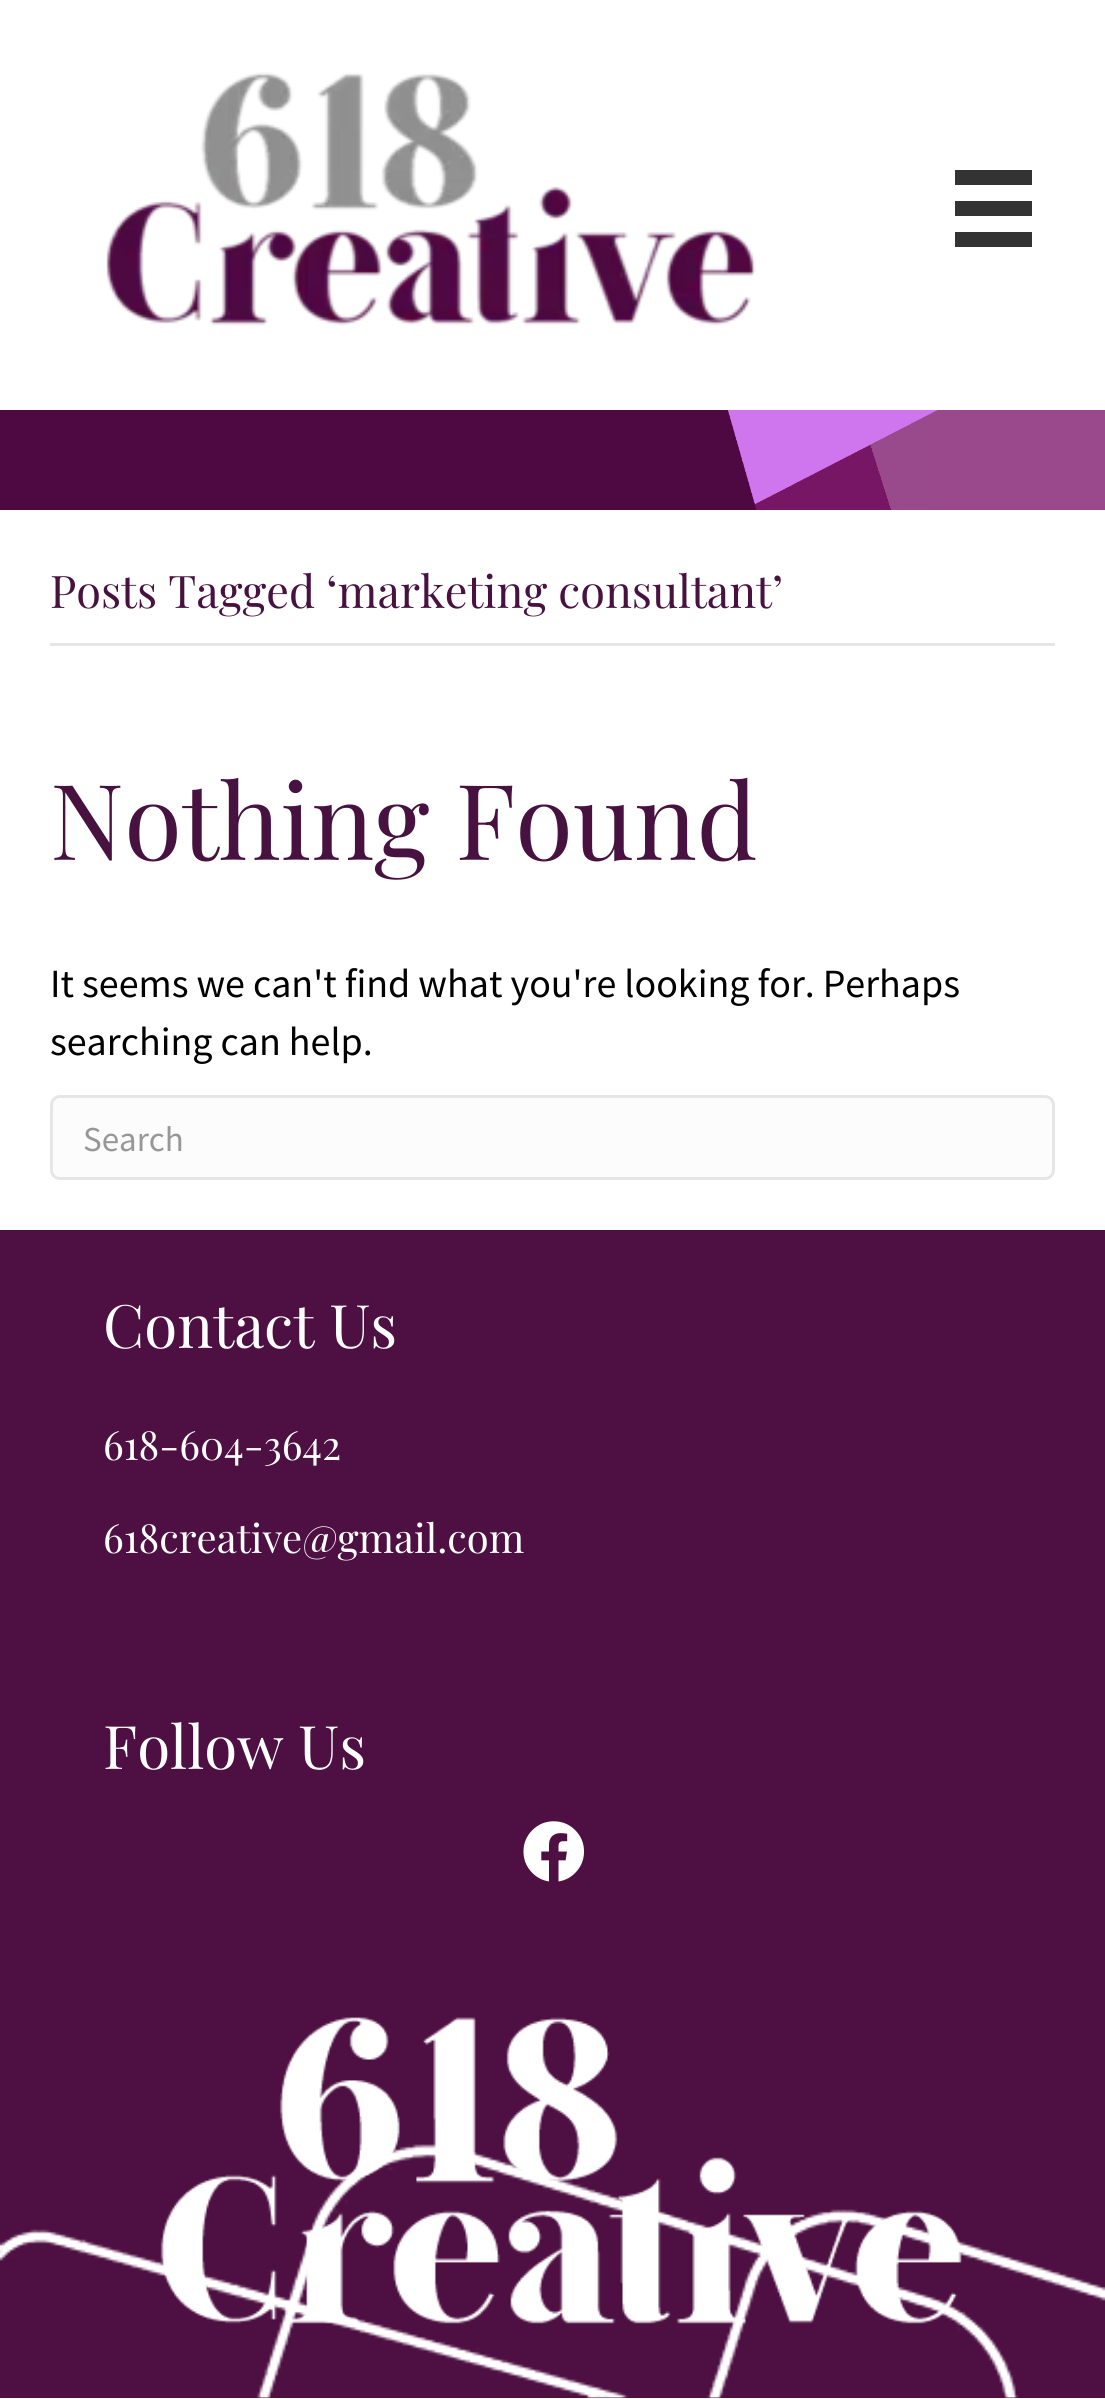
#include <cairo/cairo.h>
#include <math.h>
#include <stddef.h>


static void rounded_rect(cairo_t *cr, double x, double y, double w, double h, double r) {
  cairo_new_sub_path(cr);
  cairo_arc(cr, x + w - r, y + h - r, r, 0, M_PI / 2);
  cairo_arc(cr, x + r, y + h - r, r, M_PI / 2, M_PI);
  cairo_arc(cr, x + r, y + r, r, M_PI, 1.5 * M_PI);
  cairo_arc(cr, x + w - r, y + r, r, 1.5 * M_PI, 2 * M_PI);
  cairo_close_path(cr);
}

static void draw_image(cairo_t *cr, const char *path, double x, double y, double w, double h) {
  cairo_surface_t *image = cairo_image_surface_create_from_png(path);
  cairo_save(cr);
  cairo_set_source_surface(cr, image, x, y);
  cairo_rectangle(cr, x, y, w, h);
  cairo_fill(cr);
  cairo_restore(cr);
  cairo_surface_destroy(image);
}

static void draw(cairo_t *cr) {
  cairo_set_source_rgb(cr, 1, 1, 1);
  cairo_paint(cr);
  draw_image(cr, "images/1.png", 106, 72, 650, 254);
  cairo_set_source_rgb(cr, 51 / 255.0, 51 / 255.0, 51 / 255.0);
  cairo_rectangle(cr, 955, 170, 77, 15);
  cairo_fill(cr);
  cairo_rectangle(cr, 955, 201, 77, 15);
  cairo_fill(cr);
  cairo_rectangle(cr, 955, 232, 77, 15);
  cairo_fill(cr);
  cairo_set_source_rgb(cr, 153 / 255.0, 73 / 255.0, 140 / 255.0);
  cairo_rectangle(cr, 938, 410, 167, 100);
  cairo_fill(cr);
  draw_image(cr, "images/2.png", 0, 410, 938, 100);
  cairo_set_source_rgb(cr, 230 / 255.0, 230 / 255.0, 230 / 255.0);
  cairo_rectangle(cr, 50, 643, 1005, 3);
  cairo_fill(cr);
  cairo_set_source_rgb(cr, 252 / 255.0, 252 / 255.0, 252 / 255.0);
  rounded_rect(cr, 51.5, 1096.5, 1002, 82, 8.5);
  cairo_fill_preserve(cr);
  cairo_set_source_rgb(cr, 230 / 255.0, 230 / 255.0, 230 / 255.0);
  cairo_set_line_width(cr, 3);
  cairo_stroke(cr);
  cairo_set_source_rgb(cr, 78 / 255.0, 16 / 255.0, 66 / 255.0);
  cairo_rectangle(cr, 0, 1230, 1105, 1168);
  cairo_fill(cr);
  draw_image(cr, "images/3.png", 0, 2144, 1105, 254);
  draw_image(cr, "images/4.png", 523, 1821, 61, 61);
  draw_image(cr, "images/5.png", 160, 2017, 802, 307);
  cairo_select_font_face(cr, "Playfair Display", CAIRO_FONT_SLANT_NORMAL, CAIRO_FONT_WEIGHT_NORMAL);
  cairo_set_font_size(cr, 45);
  cairo_set_source_rgb(cr, 71 / 255.0, 18 / 255.0, 64 / 255.0);
  cairo_move_to(cr, 50, 608);
  cairo_show_text(cr, "Posts Tagged ‘marketing consultant’");
  cairo_set_font_size(cr, 105);
  cairo_move_to(cr, 50, 860);
  cairo_show_text(cr, "Nothing Found");
  cairo_select_font_face(cr, "Source Sans Pro", CAIRO_FONT_SLANT_NORMAL, CAIRO_FONT_WEIGHT_NORMAL);
  cairo_set_font_size(cr, 40);
  cairo_set_source_rgb(cr, 0, 0, 0);
  cairo_move_to(cr, 50, 997);
  cairo_show_text(cr, "It seems we can't find what you're looking for. Perhaps");
  cairo_move_to(cr, 50, 1055);
  cairo_show_text(cr, "searching can help.");
  cairo_set_font_size(cr, 35);
  cairo_set_source_rgb(cr, 151 / 255.0, 151 / 255.0, 151 / 255.0);
  cairo_move_to(cr, 83, 1151);
  cairo_show_text(cr, "Search");
  cairo_select_font_face(cr, "Playfair Display", CAIRO_FONT_SLANT_NORMAL, CAIRO_FONT_WEIGHT_NORMAL);
  cairo_set_font_size(cr, 60);
  cairo_set_source_rgb(cr, 1, 1, 1);
  cairo_move_to(cr, 103, 1348);
  cairo_show_text(cr, "Contact Us");
  cairo_set_font_size(cr, 40);
  cairo_move_to(cr, 103, 1460);
  cairo_show_text(cr, "618-604-3642");
  cairo_move_to(cr, 103, 1553);
  cairo_show_text(cr, "618creative@gmail.com");
  cairo_set_font_size(cr, 60);
  cairo_move_to(cr, 103, 1769);
  cairo_show_text(cr, "Follow Us");
}

int main(void) {
  cairo_surface_t *surface = cairo_image_surface_create(CAIRO_FORMAT_RGB24, 1105, 2399);
  cairo_t *cr = cairo_create(surface);
  cairo_font_options_t *options = cairo_font_options_create();
  cairo_font_options_set_hint_metrics(options, CAIRO_HINT_METRICS_OFF);
  cairo_font_options_set_hint_style(options, CAIRO_HINT_STYLE_NONE);
  cairo_set_font_options(cr, options);
  cairo_set_miter_limit(cr, 4);
  draw(cr);
  cairo_surface_write_to_png(surface, "out.png");
  cairo_font_options_destroy(options);
  cairo_destroy(cr);
  cairo_surface_destroy(surface);
  return 0;
}
